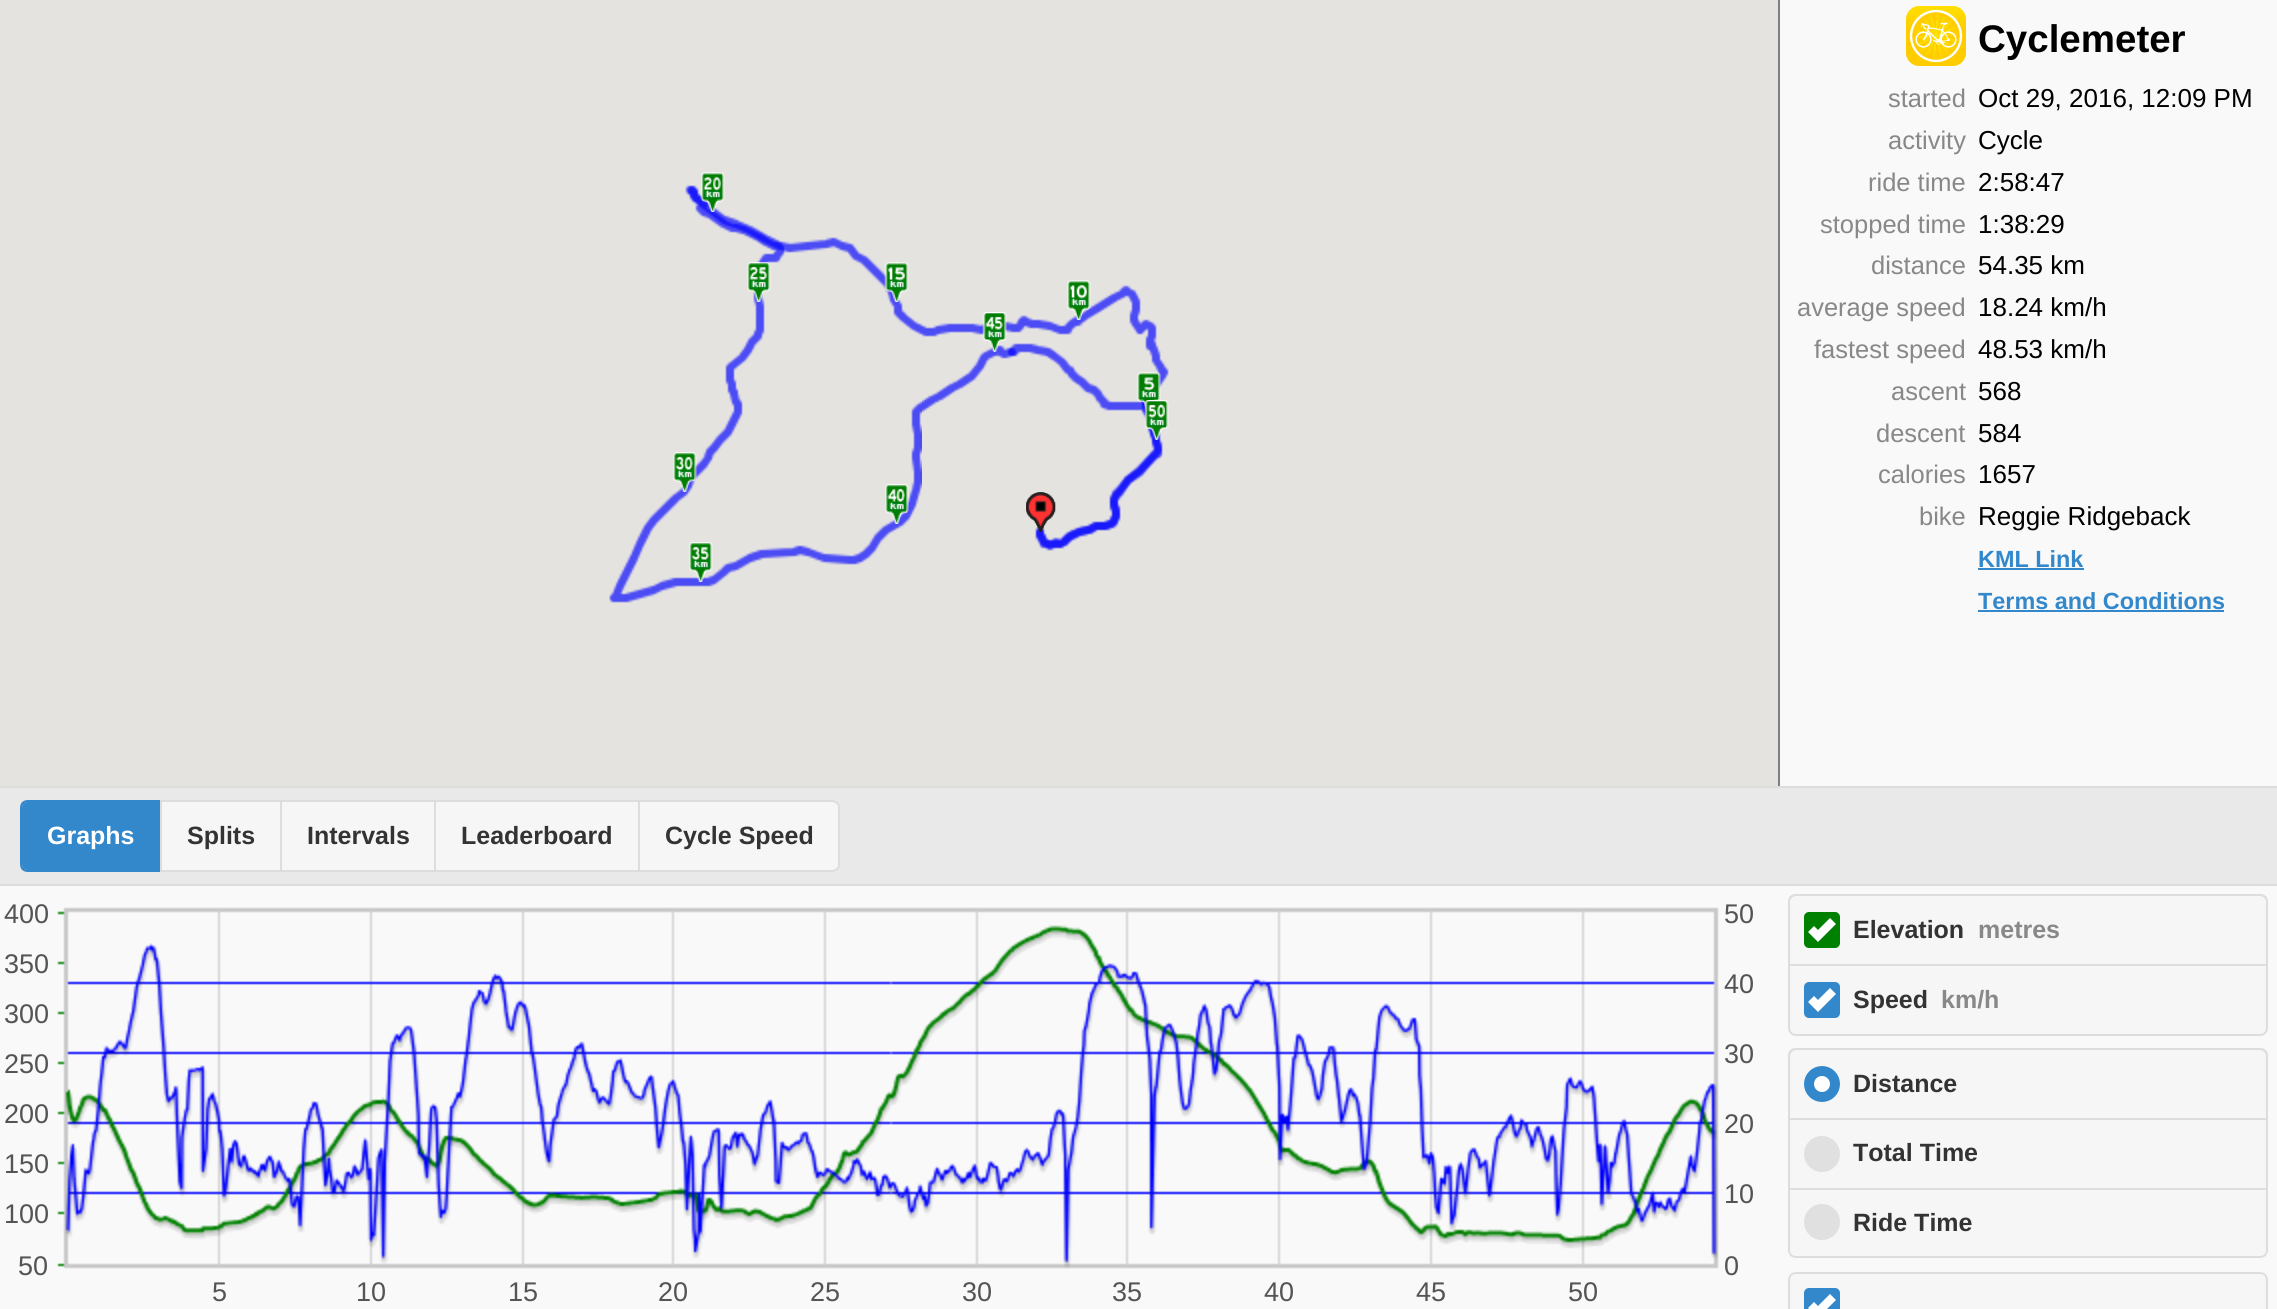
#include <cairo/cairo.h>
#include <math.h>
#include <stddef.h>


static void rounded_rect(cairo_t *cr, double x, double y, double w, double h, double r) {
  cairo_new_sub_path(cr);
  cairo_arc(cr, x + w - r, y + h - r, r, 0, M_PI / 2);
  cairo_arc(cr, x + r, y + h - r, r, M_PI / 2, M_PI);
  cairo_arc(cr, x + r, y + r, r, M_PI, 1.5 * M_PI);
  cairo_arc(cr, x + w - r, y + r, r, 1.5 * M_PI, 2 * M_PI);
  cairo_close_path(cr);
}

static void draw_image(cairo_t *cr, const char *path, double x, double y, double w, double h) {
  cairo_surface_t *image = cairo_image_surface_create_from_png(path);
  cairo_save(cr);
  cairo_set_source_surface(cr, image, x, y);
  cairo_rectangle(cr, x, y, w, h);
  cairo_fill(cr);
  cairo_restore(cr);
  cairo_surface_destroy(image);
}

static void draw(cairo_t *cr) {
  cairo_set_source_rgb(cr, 249 / 255.0, 249 / 255.0, 249 / 255.0);
  cairo_paint(cr);
  cairo_set_source_rgb(cr, 229 / 255.0, 227 / 255.0, 223 / 255.0);
  cairo_rectangle(cr, 0, 0, 1778, 786);
  cairo_fill(cr);
  draw_image(cr, "images/14.png", 609, 185, 313, 418);
  draw_image(cr, "images/1.png", 700, 172, 25, 40);
  draw_image(cr, "images/2.png", 747, 262, 24, 40);
  draw_image(cr, "images/3.png", 884, 262, 25, 40);
  draw_image(cr, "images/15.png", 922, 285, 247, 266);
  draw_image(cr, "images/4.png", 1067, 280, 24, 40);
  draw_image(cr, "images/5.png", 982, 312, 25, 40);
  draw_image(cr, "images/6.png", 1137, 372, 24, 40);
  draw_image(cr, "images/7.png", 1144, 400, 25, 40);
  draw_image(cr, "images/8.png", 673, 452, 24, 40);
  draw_image(cr, "images/9.png", 885, 484, 24, 40);
  draw_image(cr, "images/10.png", 1026, 492, 30, 40);
  draw_image(cr, "images/11.png", 1026, 492, 30, 40);
  draw_image(cr, "images/12.png", 1026, 492, 30, 40);
  draw_image(cr, "images/13.png", 689, 542, 24, 40);
  cairo_set_source_rgb(cr, 128 / 255.0, 128 / 255.0, 128 / 255.0);
  cairo_rectangle(cr, 1778, 0, 2, 786);
  cairo_fill(cr);
  draw_image(cr, "images/16.png", 1906, 6, 60, 60);
  cairo_set_source_rgb(cr, 51 / 255.0, 136 / 255.0, 204 / 255.0);
  cairo_rectangle(cr, 1978, 568, 106, 2);
  cairo_fill(cr);
  cairo_rectangle(cr, 1978, 610, 246, 2);
  cairo_fill(cr);
  cairo_set_source_rgb(cr, 221 / 255.0, 221 / 255.0, 221 / 255.0);
  cairo_rectangle(cr, 0, 786, 2277, 2);
  cairo_fill(cr);
  cairo_set_source_rgb(cr, 233 / 255.0, 233 / 255.0, 233 / 255.0);
  cairo_rectangle(cr, 0, 788, 2277, 96);
  cairo_fill(cr);
  cairo_set_source_rgb(cr, 221 / 255.0, 221 / 255.0, 221 / 255.0);
  cairo_rectangle(cr, 0, 884, 2277, 2);
  cairo_fill(cr);
  cairo_set_source_rgb(cr, 51 / 255.0, 136 / 255.0, 204 / 255.0);
  cairo_new_path(cr);
  cairo_move_to(cr, 28, 802);
  cairo_line_to(cr, 160, 802);
  cairo_line_to(cr, 160, 870);
  cairo_line_to(cr, 28, 870);
  cairo_curve_to(cr, 24.5, 870, 22, 867.5, 22, 864);
  cairo_line_to(cr, 22, 808);
  cairo_curve_to(cr, 22, 804.5, 24.5, 802, 28, 802);
  cairo_close_path(cr);
  cairo_fill(cr);
  cairo_set_fill_rule(cr, CAIRO_FILL_RULE_EVEN_ODD);
  cairo_new_path(cr);
  cairo_move_to(cr, 28, 800);
  cairo_line_to(cr, 160, 800);
  cairo_line_to(cr, 160, 872);
  cairo_line_to(cr, 28, 872);
  cairo_curve_to(cr, 23, 872, 20, 869, 20, 864);
  cairo_line_to(cr, 20, 808);
  cairo_curve_to(cr, 20, 803, 23, 800, 28, 800);
  cairo_close_path(cr);
  cairo_move_to(cr, 28, 802);
  cairo_line_to(cr, 160, 802);
  cairo_line_to(cr, 160, 870);
  cairo_line_to(cr, 28, 870);
  cairo_curve_to(cr, 25, 870, 22, 867, 22, 864);
  cairo_line_to(cr, 22, 808);
  cairo_curve_to(cr, 22, 805, 25, 802, 28, 802);
  cairo_close_path(cr);
  cairo_fill(cr);
  cairo_set_source_rgb(cr, 246 / 255.0, 246 / 255.0, 246 / 255.0);
  cairo_rectangle(cr, 162, 802, 118, 68);
  cairo_fill(cr);
  cairo_set_source_rgb(cr, 221 / 255.0, 221 / 255.0, 221 / 255.0);
  cairo_rectangle(cr, 160, 800, 478, 2);
  cairo_fill(cr);
  cairo_rectangle(cr, 160, 870, 478, 2);
  cairo_fill(cr);
  cairo_rectangle(cr, 160, 800, 2, 72);
  cairo_fill(cr);
  cairo_set_source_rgb(cr, 246 / 255.0, 246 / 255.0, 246 / 255.0);
  cairo_rectangle(cr, 282, 802, 152, 68);
  cairo_fill(cr);
  cairo_set_source_rgb(cr, 221 / 255.0, 221 / 255.0, 221 / 255.0);
  cairo_rectangle(cr, 280, 800, 2, 72);
  cairo_fill(cr);
  cairo_set_source_rgb(cr, 246 / 255.0, 246 / 255.0, 246 / 255.0);
  cairo_rectangle(cr, 436, 802, 202, 68);
  cairo_fill(cr);
  cairo_set_source_rgb(cr, 221 / 255.0, 221 / 255.0, 221 / 255.0);
  cairo_rectangle(cr, 434, 800, 2, 72);
  cairo_fill(cr);
  cairo_set_source_rgb(cr, 246 / 255.0, 246 / 255.0, 246 / 255.0);
  cairo_new_path(cr);
  cairo_move_to(cr, 639, 801);
  cairo_line_to(cr, 832, 801);
  cairo_curve_to(cr, 836, 801, 839, 804, 839, 808);
  cairo_line_to(cr, 839, 864);
  cairo_curve_to(cr, 839, 868, 836, 871, 832, 871);
  cairo_line_to(cr, 639, 871);
  cairo_close_path(cr);
  cairo_fill_preserve(cr);
  cairo_set_source_rgb(cr, 221 / 255.0, 221 / 255.0, 221 / 255.0);
  cairo_stroke(cr);
  draw_image(cr, "images/17.png", 57, 907, 1662, 362);
  cairo_set_source_rgb(cr, 246 / 255.0, 246 / 255.0, 246 / 255.0);
  cairo_new_path(cr);
  cairo_move_to(cr, 1796, 896);
  cairo_line_to(cr, 2260, 896);
  cairo_curve_to(cr, 2263.5, 896, 2266, 898.5, 2266, 902);
  cairo_line_to(cr, 2266, 964);
  cairo_line_to(cr, 1790, 964);
  cairo_line_to(cr, 1790, 902);
  cairo_curve_to(cr, 1790, 898.5, 1792.5, 896, 1796, 896);
  cairo_close_path(cr);
  cairo_fill(cr);
  cairo_set_source_rgb(cr, 221 / 255.0, 221 / 255.0, 221 / 255.0);
  cairo_new_path(cr);
  cairo_move_to(cr, 1796, 894);
  cairo_line_to(cr, 2260, 894);
  cairo_curve_to(cr, 2265, 894, 2268, 897, 2268, 902);
  cairo_line_to(cr, 2268, 964);
  cairo_line_to(cr, 1788, 964);
  cairo_line_to(cr, 1788, 902);
  cairo_curve_to(cr, 1788, 897, 1791, 894, 1796, 894);
  cairo_close_path(cr);
  cairo_move_to(cr, 1796, 896);
  cairo_line_to(cr, 2260, 896);
  cairo_curve_to(cr, 2263, 896, 2266, 899, 2266, 902);
  cairo_line_to(cr, 2266, 964);
  cairo_line_to(cr, 1790, 964);
  cairo_line_to(cr, 1790, 902);
  cairo_curve_to(cr, 1790, 899, 1793, 896, 1796, 896);
  cairo_close_path(cr);
  cairo_fill(cr);
  cairo_set_source_rgb(cr, 0, 128 / 255.0, 0);
  rounded_rect(cr, 1804, 912, 36, 36, 5);
  cairo_fill(cr);
  cairo_set_source_rgb(cr, 1, 1, 1);
  cairo_set_fill_rule(cr, CAIRO_FILL_RULE_WINDING);
  cairo_new_path(cr);
  cairo_move_to(cr, 1836, 924);
  cairo_line_to(cr, 1830, 918);
  cairo_line_to(cr, 1818, 930);
  cairo_line_to(cr, 1814, 926);
  cairo_line_to(cr, 1808, 932);
  cairo_line_to(cr, 1818, 942);
  cairo_close_path(cr);
  cairo_fill(cr);
  cairo_set_source_rgb(cr, 246 / 255.0, 246 / 255.0, 246 / 255.0);
  cairo_new_path(cr);
  cairo_move_to(cr, 1789, 965);
  cairo_line_to(cr, 2267, 965);
  cairo_line_to(cr, 2267, 1028);
  cairo_curve_to(cr, 2267, 1032, 2264, 1035, 2260, 1035);
  cairo_line_to(cr, 1796, 1035);
  cairo_curve_to(cr, 1792, 1035, 1789, 1032, 1789, 1028);
  cairo_close_path(cr);
  cairo_fill_preserve(cr);
  cairo_set_source_rgb(cr, 221 / 255.0, 221 / 255.0, 221 / 255.0);
  cairo_stroke(cr);
  cairo_set_source_rgb(cr, 51 / 255.0, 136 / 255.0, 204 / 255.0);
  rounded_rect(cr, 1804, 982, 36, 36, 5);
  cairo_fill(cr);
  cairo_set_source_rgb(cr, 1, 1, 1);
  cairo_new_path(cr);
  cairo_move_to(cr, 1836, 994);
  cairo_line_to(cr, 1830, 988);
  cairo_line_to(cr, 1818, 1000);
  cairo_line_to(cr, 1814, 996);
  cairo_line_to(cr, 1808, 1002);
  cairo_line_to(cr, 1818, 1012);
  cairo_close_path(cr);
  cairo_fill(cr);
  cairo_set_source_rgb(cr, 246 / 255.0, 246 / 255.0, 246 / 255.0);
  cairo_new_path(cr);
  cairo_move_to(cr, 1796, 1050);
  cairo_line_to(cr, 2260, 1050);
  cairo_curve_to(cr, 2263.5, 1050, 2266, 1052.5, 2266, 1056);
  cairo_line_to(cr, 2266, 1118);
  cairo_line_to(cr, 1790, 1118);
  cairo_line_to(cr, 1790, 1056);
  cairo_curve_to(cr, 1790, 1052.5, 1792.5, 1050, 1796, 1050);
  cairo_close_path(cr);
  cairo_fill(cr);
  cairo_set_source_rgb(cr, 221 / 255.0, 221 / 255.0, 221 / 255.0);
  cairo_set_fill_rule(cr, CAIRO_FILL_RULE_EVEN_ODD);
  cairo_new_path(cr);
  cairo_move_to(cr, 1796, 1048);
  cairo_line_to(cr, 2260, 1048);
  cairo_curve_to(cr, 2265, 1048, 2268, 1051, 2268, 1056);
  cairo_line_to(cr, 2268, 1118);
  cairo_line_to(cr, 1788, 1118);
  cairo_line_to(cr, 1788, 1056);
  cairo_curve_to(cr, 1788, 1051, 1791, 1048, 1796, 1048);
  cairo_close_path(cr);
  cairo_move_to(cr, 1796, 1050);
  cairo_line_to(cr, 2260, 1050);
  cairo_curve_to(cr, 2263, 1050, 2266, 1053, 2266, 1056);
  cairo_line_to(cr, 2266, 1118);
  cairo_line_to(cr, 1790, 1118);
  cairo_line_to(cr, 1790, 1056);
  cairo_curve_to(cr, 1790, 1053, 1793, 1050, 1796, 1050);
  cairo_close_path(cr);
  cairo_fill(cr);
  cairo_set_source_rgb(cr, 1, 1, 1);
  cairo_arc(cr, 1822, 1084, 13, 0, 2 * M_PI);
  cairo_fill_preserve(cr);
  cairo_set_source_rgb(cr, 51 / 255.0, 136 / 255.0, 204 / 255.0);
  cairo_set_line_width(cr, 10);
  cairo_stroke(cr);
  cairo_set_source_rgb(cr, 246 / 255.0, 246 / 255.0, 246 / 255.0);
  cairo_rectangle(cr, 1790, 1120, 476, 68);
  cairo_fill(cr);
  cairo_set_source_rgb(cr, 221 / 255.0, 221 / 255.0, 221 / 255.0);
  cairo_rectangle(cr, 1788, 1118, 480, 2);
  cairo_fill(cr);
  cairo_rectangle(cr, 2266, 1118, 2, 70);
  cairo_fill(cr);
  cairo_rectangle(cr, 1788, 1118, 2, 70);
  cairo_fill(cr);
  cairo_set_source_rgb(cr, 224 / 255.0, 224 / 255.0, 224 / 255.0);
  cairo_arc(cr, 1822, 1154, 18, 0, 2 * M_PI);
  cairo_fill(cr);
  cairo_set_source_rgb(cr, 246 / 255.0, 246 / 255.0, 246 / 255.0);
  cairo_new_path(cr);
  cairo_move_to(cr, 1789, 1189);
  cairo_line_to(cr, 2267, 1189);
  cairo_line_to(cr, 2267, 1250);
  cairo_curve_to(cr, 2267, 1254, 2264, 1257, 2260, 1257);
  cairo_line_to(cr, 1796, 1257);
  cairo_curve_to(cr, 1792, 1257, 1789, 1254, 1789, 1250);
  cairo_close_path(cr);
  cairo_fill_preserve(cr);
  cairo_set_source_rgb(cr, 221 / 255.0, 221 / 255.0, 221 / 255.0);
  cairo_set_line_width(cr, 2);
  cairo_stroke(cr);
  cairo_set_source_rgb(cr, 224 / 255.0, 224 / 255.0, 224 / 255.0);
  cairo_arc(cr, 1822, 1222, 18, 0, 2 * M_PI);
  cairo_fill(cr);
  cairo_set_source_rgb(cr, 246 / 255.0, 246 / 255.0, 246 / 255.0);
  cairo_new_path(cr);
  cairo_move_to(cr, 1796, 1274);
  cairo_line_to(cr, 2260, 1274);
  cairo_curve_to(cr, 2263.5, 1274, 2266, 1276.5, 2266, 1280);
  cairo_line_to(cr, 2266, 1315);
  cairo_line_to(cr, 1790, 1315);
  cairo_line_to(cr, 1790, 1280);
  cairo_curve_to(cr, 1790, 1276.5, 1792.5, 1274, 1796, 1274);
  cairo_close_path(cr);
  cairo_fill(cr);
  rounded_rect(cr, 1789, 1273, 478, 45, 7);
  cairo_set_source_rgb(cr, 221 / 255.0, 221 / 255.0, 221 / 255.0);
  cairo_stroke(cr);
  cairo_set_source_rgb(cr, 51 / 255.0, 136 / 255.0, 204 / 255.0);
  rounded_rect(cr, 1804, 1288, 36, 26, 5);
  cairo_fill(cr);
  cairo_set_source_rgb(cr, 1, 1, 1);
  cairo_set_fill_rule(cr, CAIRO_FILL_RULE_WINDING);
  cairo_new_path(cr);
  cairo_move_to(cr, 1836, 1300);
  cairo_line_to(cr, 1830, 1294);
  cairo_line_to(cr, 1818, 1306);
  cairo_line_to(cr, 1814, 1302);
  cairo_line_to(cr, 1808, 1308);
  cairo_line_to(cr, 1818, 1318);
  cairo_close_path(cr);
  cairo_fill(cr);
  cairo_select_font_face(cr, "Liberation Sans", CAIRO_FONT_SLANT_NORMAL, CAIRO_FONT_WEIGHT_BOLD);
  cairo_set_font_size(cr, 38.5);
  cairo_set_source_rgb(cr, 0, 0, 0);
  cairo_move_to(cr, 1978, 52);
  cairo_show_text(cr, "Cyclemeter");
  cairo_select_font_face(cr, "Liberation Sans", CAIRO_FONT_SLANT_NORMAL, CAIRO_FONT_WEIGHT_NORMAL);
  cairo_set_font_size(cr, 25.5);
  cairo_set_source_rgb(cr, 136 / 255.0, 136 / 255.0, 136 / 255.0);
  cairo_move_to(cr, 1888, 107);
  cairo_show_text(cr, "started");
  cairo_set_font_size(cr, 26);
  cairo_set_source_rgb(cr, 0, 0, 0);
  cairo_move_to(cr, 1978, 107);
  cairo_show_text(cr, "Oct 29, 2016, 12:09 PM");
  cairo_set_font_size(cr, 25.5);
  cairo_set_source_rgb(cr, 136 / 255.0, 136 / 255.0, 136 / 255.0);
  cairo_move_to(cr, 1888, 149);
  cairo_show_text(cr, "activity");
  cairo_set_font_size(cr, 26);
  cairo_set_source_rgb(cr, 0, 0, 0);
  cairo_move_to(cr, 1978, 149);
  cairo_show_text(cr, "Cycle");
  cairo_set_font_size(cr, 25.5);
  cairo_set_source_rgb(cr, 136 / 255.0, 136 / 255.0, 136 / 255.0);
  cairo_move_to(cr, 1868, 191);
  cairo_show_text(cr, "ride time");
  cairo_set_font_size(cr, 26);
  cairo_set_source_rgb(cr, 0, 0, 0);
  cairo_move_to(cr, 1978, 191);
  cairo_show_text(cr, "2:58:47");
  cairo_set_font_size(cr, 25.5);
  cairo_set_source_rgb(cr, 136 / 255.0, 136 / 255.0, 136 / 255.0);
  cairo_move_to(cr, 1820, 233);
  cairo_show_text(cr, "stopped time");
  cairo_set_font_size(cr, 26);
  cairo_set_source_rgb(cr, 0, 0, 0);
  cairo_move_to(cr, 1978, 233);
  cairo_show_text(cr, "1:38:29");
  cairo_set_font_size(cr, 25.5);
  cairo_set_source_rgb(cr, 136 / 255.0, 136 / 255.0, 136 / 255.0);
  cairo_move_to(cr, 1871, 274);
  cairo_show_text(cr, "distance");
  cairo_set_font_size(cr, 26);
  cairo_set_source_rgb(cr, 0, 0, 0);
  cairo_move_to(cr, 1978, 274);
  cairo_show_text(cr, "54.35 km");
  cairo_set_font_size(cr, 25.5);
  cairo_set_source_rgb(cr, 136 / 255.0, 136 / 255.0, 136 / 255.0);
  cairo_move_to(cr, 1797, 316);
  cairo_show_text(cr, "average speed");
  cairo_set_font_size(cr, 26);
  cairo_set_source_rgb(cr, 0, 0, 0);
  cairo_move_to(cr, 1978, 316);
  cairo_show_text(cr, "18.24 km/h");
  cairo_set_font_size(cr, 25.5);
  cairo_set_source_rgb(cr, 136 / 255.0, 136 / 255.0, 136 / 255.0);
  cairo_move_to(cr, 1814, 358);
  cairo_show_text(cr, "fastest speed");
  cairo_set_font_size(cr, 26);
  cairo_set_source_rgb(cr, 0, 0, 0);
  cairo_move_to(cr, 1978, 358);
  cairo_show_text(cr, "48.53 km/h");
  cairo_set_font_size(cr, 25.5);
  cairo_set_source_rgb(cr, 136 / 255.0, 136 / 255.0, 136 / 255.0);
  cairo_move_to(cr, 1891, 400);
  cairo_show_text(cr, "ascent");
  cairo_set_font_size(cr, 26);
  cairo_set_source_rgb(cr, 0, 0, 0);
  cairo_move_to(cr, 1978, 400);
  cairo_show_text(cr, "568");
  cairo_set_font_size(cr, 25.5);
  cairo_set_source_rgb(cr, 136 / 255.0, 136 / 255.0, 136 / 255.0);
  cairo_move_to(cr, 1876, 442);
  cairo_show_text(cr, "descent");
  cairo_set_font_size(cr, 26);
  cairo_set_source_rgb(cr, 0, 0, 0);
  cairo_move_to(cr, 1978, 442);
  cairo_show_text(cr, "584");
  cairo_set_font_size(cr, 25.5);
  cairo_set_source_rgb(cr, 136 / 255.0, 136 / 255.0, 136 / 255.0);
  cairo_move_to(cr, 1878, 483);
  cairo_show_text(cr, "calories");
  cairo_set_font_size(cr, 26);
  cairo_set_source_rgb(cr, 0, 0, 0);
  cairo_move_to(cr, 1978, 483);
  cairo_show_text(cr, "1657");
  cairo_set_font_size(cr, 25.5);
  cairo_set_source_rgb(cr, 136 / 255.0, 136 / 255.0, 136 / 255.0);
  cairo_move_to(cr, 1919, 525);
  cairo_show_text(cr, "bike");
  cairo_set_font_size(cr, 26);
  cairo_set_source_rgb(cr, 0, 0, 0);
  cairo_move_to(cr, 1978, 525);
  cairo_show_text(cr, "Reggie Ridgeback");
  cairo_select_font_face(cr, "Liberation Sans", CAIRO_FONT_SLANT_NORMAL, CAIRO_FONT_WEIGHT_BOLD);
  cairo_set_font_size(cr, 23.4);
  cairo_set_source_rgb(cr, 51 / 255.0, 136 / 255.0, 204 / 255.0);
  cairo_move_to(cr, 1978, 567);
  cairo_show_text(cr, "KML Link");
  cairo_move_to(cr, 1978, 609);
  cairo_show_text(cr, "Terms and Conditions");
  cairo_set_font_size(cr, 25);
  cairo_set_source_rgb(cr, 1, 1, 1);
  cairo_move_to(cr, 47, 844);
  cairo_show_text(cr, "Graphs");
  cairo_set_source_rgb(cr, 51 / 255.0, 51 / 255.0, 51 / 255.0);
  cairo_move_to(cr, 187, 844);
  cairo_show_text(cr, "Splits");
  cairo_move_to(cr, 307, 844);
  cairo_show_text(cr, "Intervals");
  cairo_move_to(cr, 461, 844);
  cairo_show_text(cr, "Leaderboard");
  cairo_move_to(cr, 665, 844);
  cairo_show_text(cr, "Cycle Speed");
  cairo_select_font_face(cr, "Liberation Sans", CAIRO_FONT_SLANT_NORMAL, CAIRO_FONT_WEIGHT_NORMAL);
  cairo_set_font_size(cr, 27);
  cairo_set_source_rgb(cr, 84 / 255.0, 84 / 255.0, 84 / 255.0);
  cairo_move_to(cr, 4, 923);
  cairo_show_text(cr, "400");
  cairo_move_to(cr, 4, 973);
  cairo_show_text(cr, "350");
  cairo_move_to(cr, 4, 1023);
  cairo_show_text(cr, "300");
  cairo_move_to(cr, 4, 1073);
  cairo_show_text(cr, "250");
  cairo_move_to(cr, 4, 1123);
  cairo_show_text(cr, "200");
  cairo_move_to(cr, 4, 1173);
  cairo_show_text(cr, "150");
  cairo_move_to(cr, 4, 1223);
  cairo_show_text(cr, "100");
  cairo_move_to(cr, 18, 1275);
  cairo_show_text(cr, "50");
  cairo_move_to(cr, 1724, 923);
  cairo_show_text(cr, "50");
  cairo_move_to(cr, 1724, 993);
  cairo_show_text(cr, "40");
  cairo_move_to(cr, 1724, 1063);
  cairo_show_text(cr, "30");
  cairo_move_to(cr, 1724, 1133);
  cairo_show_text(cr, "20");
  cairo_move_to(cr, 1724, 1203);
  cairo_show_text(cr, "10");
  cairo_move_to(cr, 1724, 1275);
  cairo_show_text(cr, "0");
  cairo_move_to(cr, 212, 1301);
  cairo_show_text(cr, "5");
  cairo_move_to(cr, 356, 1301);
  cairo_show_text(cr, "10");
  cairo_move_to(cr, 508, 1301);
  cairo_show_text(cr, "15");
  cairo_move_to(cr, 658, 1301);
  cairo_show_text(cr, "20");
  cairo_move_to(cr, 810, 1301);
  cairo_show_text(cr, "25");
  cairo_move_to(cr, 962, 1301);
  cairo_show_text(cr, "30");
  cairo_move_to(cr, 1112, 1301);
  cairo_show_text(cr, "35");
  cairo_move_to(cr, 1264, 1301);
  cairo_show_text(cr, "40");
  cairo_move_to(cr, 1416, 1301);
  cairo_show_text(cr, "45");
  cairo_move_to(cr, 1568, 1301);
  cairo_show_text(cr, "50");
  cairo_select_font_face(cr, "Liberation Sans", CAIRO_FONT_SLANT_NORMAL, CAIRO_FONT_WEIGHT_BOLD);
  cairo_set_font_size(cr, 25);
  cairo_set_source_rgb(cr, 51 / 255.0, 51 / 255.0, 51 / 255.0);
  cairo_move_to(cr, 1853, 938);
  cairo_show_text(cr, "Elevation");
  cairo_set_source_rgb(cr, 136 / 255.0, 136 / 255.0, 136 / 255.0);
  cairo_move_to(cr, 1978, 938);
  cairo_show_text(cr, "metres");
  cairo_set_source_rgb(cr, 51 / 255.0, 51 / 255.0, 51 / 255.0);
  cairo_move_to(cr, 1853, 1008);
  cairo_show_text(cr, "Speed");
  cairo_set_source_rgb(cr, 136 / 255.0, 136 / 255.0, 136 / 255.0);
  cairo_move_to(cr, 1941, 1008);
  cairo_show_text(cr, "km/h");
  cairo_set_source_rgb(cr, 51 / 255.0, 51 / 255.0, 51 / 255.0);
  cairo_move_to(cr, 1853, 1092);
  cairo_show_text(cr, "Distance");
  cairo_move_to(cr, 1853, 1161);
  cairo_show_text(cr, "Total Time");
  cairo_move_to(cr, 1853, 1231);
  cairo_show_text(cr, "Ride Time");
}

int main(void) {
  cairo_surface_t *surface = cairo_image_surface_create(CAIRO_FORMAT_RGB24, 2277, 1309);
  cairo_t *cr = cairo_create(surface);
  cairo_font_options_t *options = cairo_font_options_create();
  cairo_font_options_set_hint_metrics(options, CAIRO_HINT_METRICS_OFF);
  cairo_font_options_set_hint_style(options, CAIRO_HINT_STYLE_NONE);
  cairo_set_font_options(cr, options);
  cairo_set_miter_limit(cr, 4);
  draw(cr);
  cairo_surface_write_to_png(surface, "out.png");
  cairo_font_options_destroy(options);
  cairo_destroy(cr);
  cairo_surface_destroy(surface);
  return 0;
}
